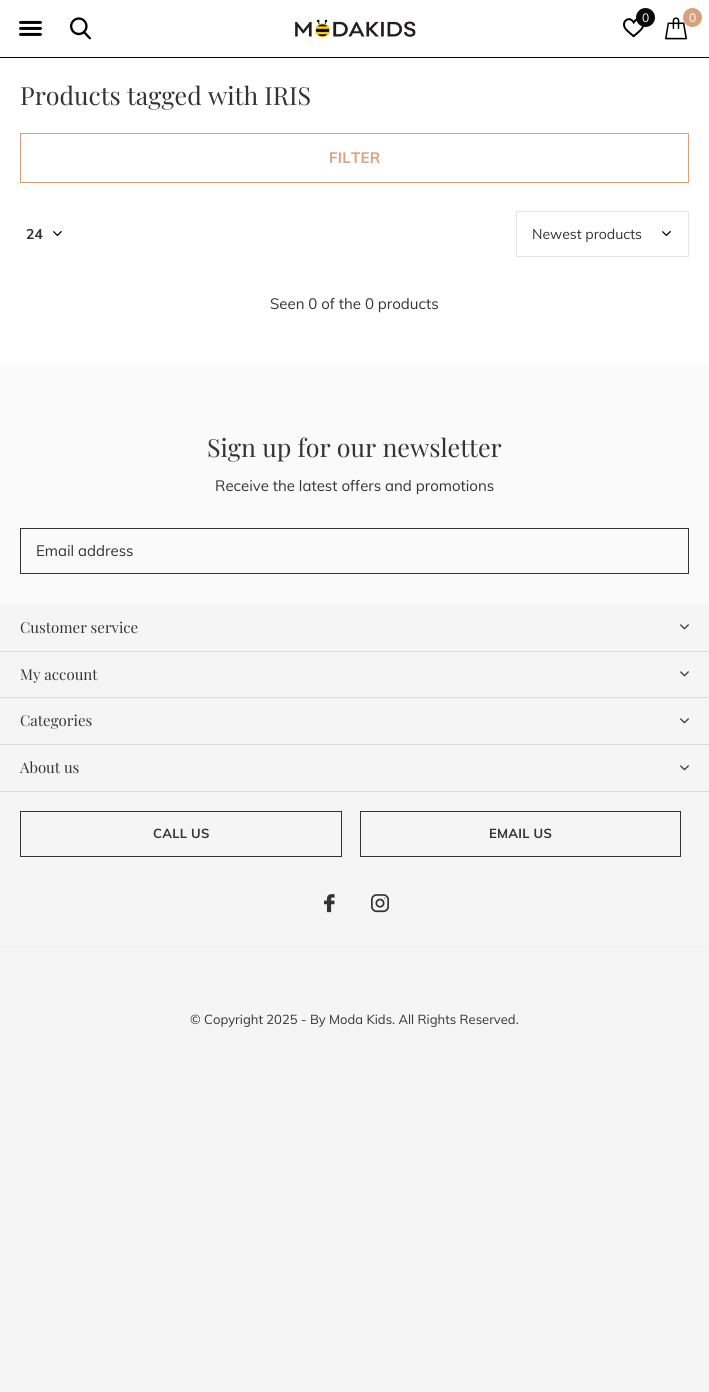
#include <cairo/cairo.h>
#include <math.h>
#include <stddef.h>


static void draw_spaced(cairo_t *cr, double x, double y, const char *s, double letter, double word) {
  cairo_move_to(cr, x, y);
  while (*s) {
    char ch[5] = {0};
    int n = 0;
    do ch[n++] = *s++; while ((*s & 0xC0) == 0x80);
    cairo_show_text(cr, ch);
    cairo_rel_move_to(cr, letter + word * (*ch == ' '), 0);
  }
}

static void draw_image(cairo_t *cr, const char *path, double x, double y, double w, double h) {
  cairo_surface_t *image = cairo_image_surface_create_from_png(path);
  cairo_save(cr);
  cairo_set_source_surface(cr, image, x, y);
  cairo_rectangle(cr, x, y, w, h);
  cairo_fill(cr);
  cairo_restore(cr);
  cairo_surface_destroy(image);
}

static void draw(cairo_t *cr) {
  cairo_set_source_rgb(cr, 245 / 255.0, 245 / 255.0, 245 / 255.0);
  cairo_paint(cr);
  cairo_set_source_rgb(cr, 1, 1, 1);
  cairo_rectangle(cr, 0, 0, 709, 365);
  cairo_fill(cr);
  draw_image(cr, "images/1.png", 70, 17, 21, 23);
  draw_image(cr, "images/2.png", 623, 18, 21, 20);
  cairo_set_source_rgb(cr, 10 / 255.0, 10 / 255.0, 10 / 255.0);
  cairo_arc(cr, 645.5, 17.5, 9.5, 0, 2 * M_PI);
  cairo_fill(cr);
  draw_image(cr, "images/3.png", 665, 17, 22, 23);
  cairo_set_source_rgb(cr, 217 / 255.0, 161 / 255.0, 123 / 255.0);
  cairo_arc(cr, 692.5, 17.5, 9.5, 0, 2 * M_PI);
  cairo_fill(cr);
  draw_image(cr, "images/4.png", 19, 20, 23, 16);
  draw_image(cr, "images/5.png", 295, 19, 121, 19);
  cairo_set_source_rgb(cr, 3 / 255.0, 3 / 255.0, 3 / 255.0);
  cairo_rectangle(cr, 0, 57, 709, 1);
  cairo_fill(cr);
  cairo_rectangle(cr, 20.5, 133.5, 668, 49);
  cairo_set_source_rgb(cr, 217 / 255.0, 161 / 255.0, 123 / 255.0);
  cairo_set_line_width(cr, 1);
  cairo_stroke(cr);
  draw_image(cr, "images/6.png", 53, 231, 9, 5);
  draw_image(cr, "images/6.png", 662, 231, 9, 5);
  cairo_rectangle(cr, 516.5, 211.5, 172, 45);
  cairo_set_source_rgb(cr, 229 / 255.0, 229 / 255.0, 229 / 255.0);
  cairo_stroke(cr);
  cairo_set_source_rgb(cr, 250 / 255.0, 250 / 255.0, 250 / 255.0);
  cairo_rectangle(cr, 0, 365, 709, 239);
  cairo_fill(cr);
  cairo_rectangle(cr, 20.5, 528.5, 668, 45);
  cairo_set_source_rgb(cr, 51 / 255.0, 51 / 255.0, 51 / 255.0);
  cairo_stroke(cr);
  draw_image(cr, "images/7.png", 680, 624, 9, 6);
  cairo_set_source_rgb(cr, 221 / 255.0, 221 / 255.0, 221 / 255.0);
  cairo_rectangle(cr, 0, 651, 709, 1);
  cairo_fill(cr);
  draw_image(cr, "images/7.png", 680, 671, 9, 6);
  cairo_rectangle(cr, 0, 697, 709, 1);
  cairo_fill(cr);
  draw_image(cr, "images/7.png", 680, 718, 9, 6);
  cairo_rectangle(cr, 0, 744, 709, 1);
  cairo_fill(cr);
  draw_image(cr, "images/7.png", 680, 765, 9, 6);
  cairo_rectangle(cr, 0, 791, 709, 1);
  cairo_fill(cr);
  cairo_rectangle(cr, 20.5, 811.5, 321, 45);
  cairo_set_source_rgb(cr, 51 / 255.0, 51 / 255.0, 51 / 255.0);
  cairo_stroke(cr);
  cairo_rectangle(cr, 360.5, 811.5, 320, 45);
  cairo_stroke(cr);
  draw_image(cr, "images/8.png", 324, 894, 11, 19);
  draw_image(cr, "images/9.png", 371, 894, 18, 19);
  cairo_set_source_rgb(cr, 240 / 255.0, 240 / 255.0, 240 / 255.0);
  cairo_rectangle(cr, 0, 946, 709, 1);
  cairo_fill(cr);
  cairo_select_font_face(cr, "Muli", CAIRO_FONT_SLANT_NORMAL, CAIRO_FONT_WEIGHT_NORMAL);
  cairo_set_font_size(cr, 12);
  cairo_set_source_rgb(cr, 1, 1, 1);
  cairo_move_to(cr, 642, 22);
  cairo_show_text(cr, "0");
  cairo_move_to(cr, 689, 22);
  cairo_show_text(cr, "0");
  cairo_select_font_face(cr, "Playfair Display", CAIRO_FONT_SLANT_NORMAL, CAIRO_FONT_WEIGHT_NORMAL);
  cairo_set_font_size(cr, 25);
  cairo_set_source_rgb(cr, 51 / 255.0, 51 / 255.0, 51 / 255.0);
  cairo_move_to(cr, 20, 105);
  cairo_show_text(cr, "Products tagged with IRIS");
  cairo_select_font_face(cr, "Muli", CAIRO_FONT_SLANT_NORMAL, CAIRO_FONT_WEIGHT_BOLD);
  cairo_set_font_size(cr, 15);
  cairo_set_source_rgb(cr, 217 / 255.0, 161 / 255.0, 123 / 255.0);
  draw_spaced(cr, 329, 163, "FILTER", 0.25, 0);
  cairo_set_font_size(cr, 14);
  cairo_set_source_rgb(cr, 51 / 255.0, 51 / 255.0, 51 / 255.0);
  cairo_move_to(cr, 26, 239);
  cairo_show_text(cr, "24");
  cairo_select_font_face(cr, "Muli", CAIRO_FONT_SLANT_NORMAL, CAIRO_FONT_WEIGHT_NORMAL);
  cairo_move_to(cr, 532, 239);
  cairo_show_text(cr, "Newest products");
  cairo_set_font_size(cr, 15);
  cairo_move_to(cr, 270, 309);
  cairo_show_text(cr, "Seen 0 of the 0 products");
  cairo_select_font_face(cr, "Playfair Display", CAIRO_FONT_SLANT_NORMAL, CAIRO_FONT_WEIGHT_NORMAL);
  cairo_set_font_size(cr, 25);
  cairo_move_to(cr, 207, 457);
  cairo_show_text(cr, "Sign up for our newsletter");
  cairo_select_font_face(cr, "Muli", CAIRO_FONT_SLANT_NORMAL, CAIRO_FONT_WEIGHT_NORMAL);
  cairo_set_font_size(cr, 15);
  cairo_move_to(cr, 215, 491);
  cairo_show_text(cr, "Receive the latest offers and promotions");
  cairo_move_to(cr, 36, 556);
  cairo_show_text(cr, "Email address");
  cairo_select_font_face(cr, "Playfair Display", CAIRO_FONT_SLANT_NORMAL, CAIRO_FONT_WEIGHT_NORMAL);
  cairo_move_to(cr, 20, 633);
  cairo_show_text(cr, "Customer service");
  cairo_move_to(cr, 20, 680);
  cairo_show_text(cr, "My account");
  cairo_move_to(cr, 20, 726);
  cairo_show_text(cr, "Categories");
  cairo_move_to(cr, 20, 773);
  cairo_show_text(cr, "About us");
  cairo_select_font_face(cr, "Muli", CAIRO_FONT_SLANT_NORMAL, CAIRO_FONT_WEIGHT_BOLD);
  cairo_set_font_size(cr, 13);
  draw_spaced(cr, 153, 838, "CALL US", 0.25, 0);
  draw_spaced(cr, 489, 838, "EMAIL US", 0.25, 0);
  cairo_select_font_face(cr, "Muli", CAIRO_FONT_SLANT_NORMAL, CAIRO_FONT_WEIGHT_NORMAL);
  cairo_move_to(cr, 190, 1024);
  cairo_show_text(cr, "© Copyright 2025 - By Moda Kids. All Rights Reserved.");
}

int main(void) {
  cairo_surface_t *surface = cairo_image_surface_create(CAIRO_FORMAT_RGB24, 709, 1392);
  cairo_t *cr = cairo_create(surface);
  cairo_font_options_t *options = cairo_font_options_create();
  cairo_font_options_set_hint_metrics(options, CAIRO_HINT_METRICS_OFF);
  cairo_font_options_set_hint_style(options, CAIRO_HINT_STYLE_NONE);
  cairo_set_font_options(cr, options);
  cairo_set_miter_limit(cr, 4);
  draw(cr);
  cairo_surface_write_to_png(surface, "out.png");
  cairo_font_options_destroy(options);
  cairo_destroy(cr);
  cairo_surface_destroy(surface);
  return 0;
}
